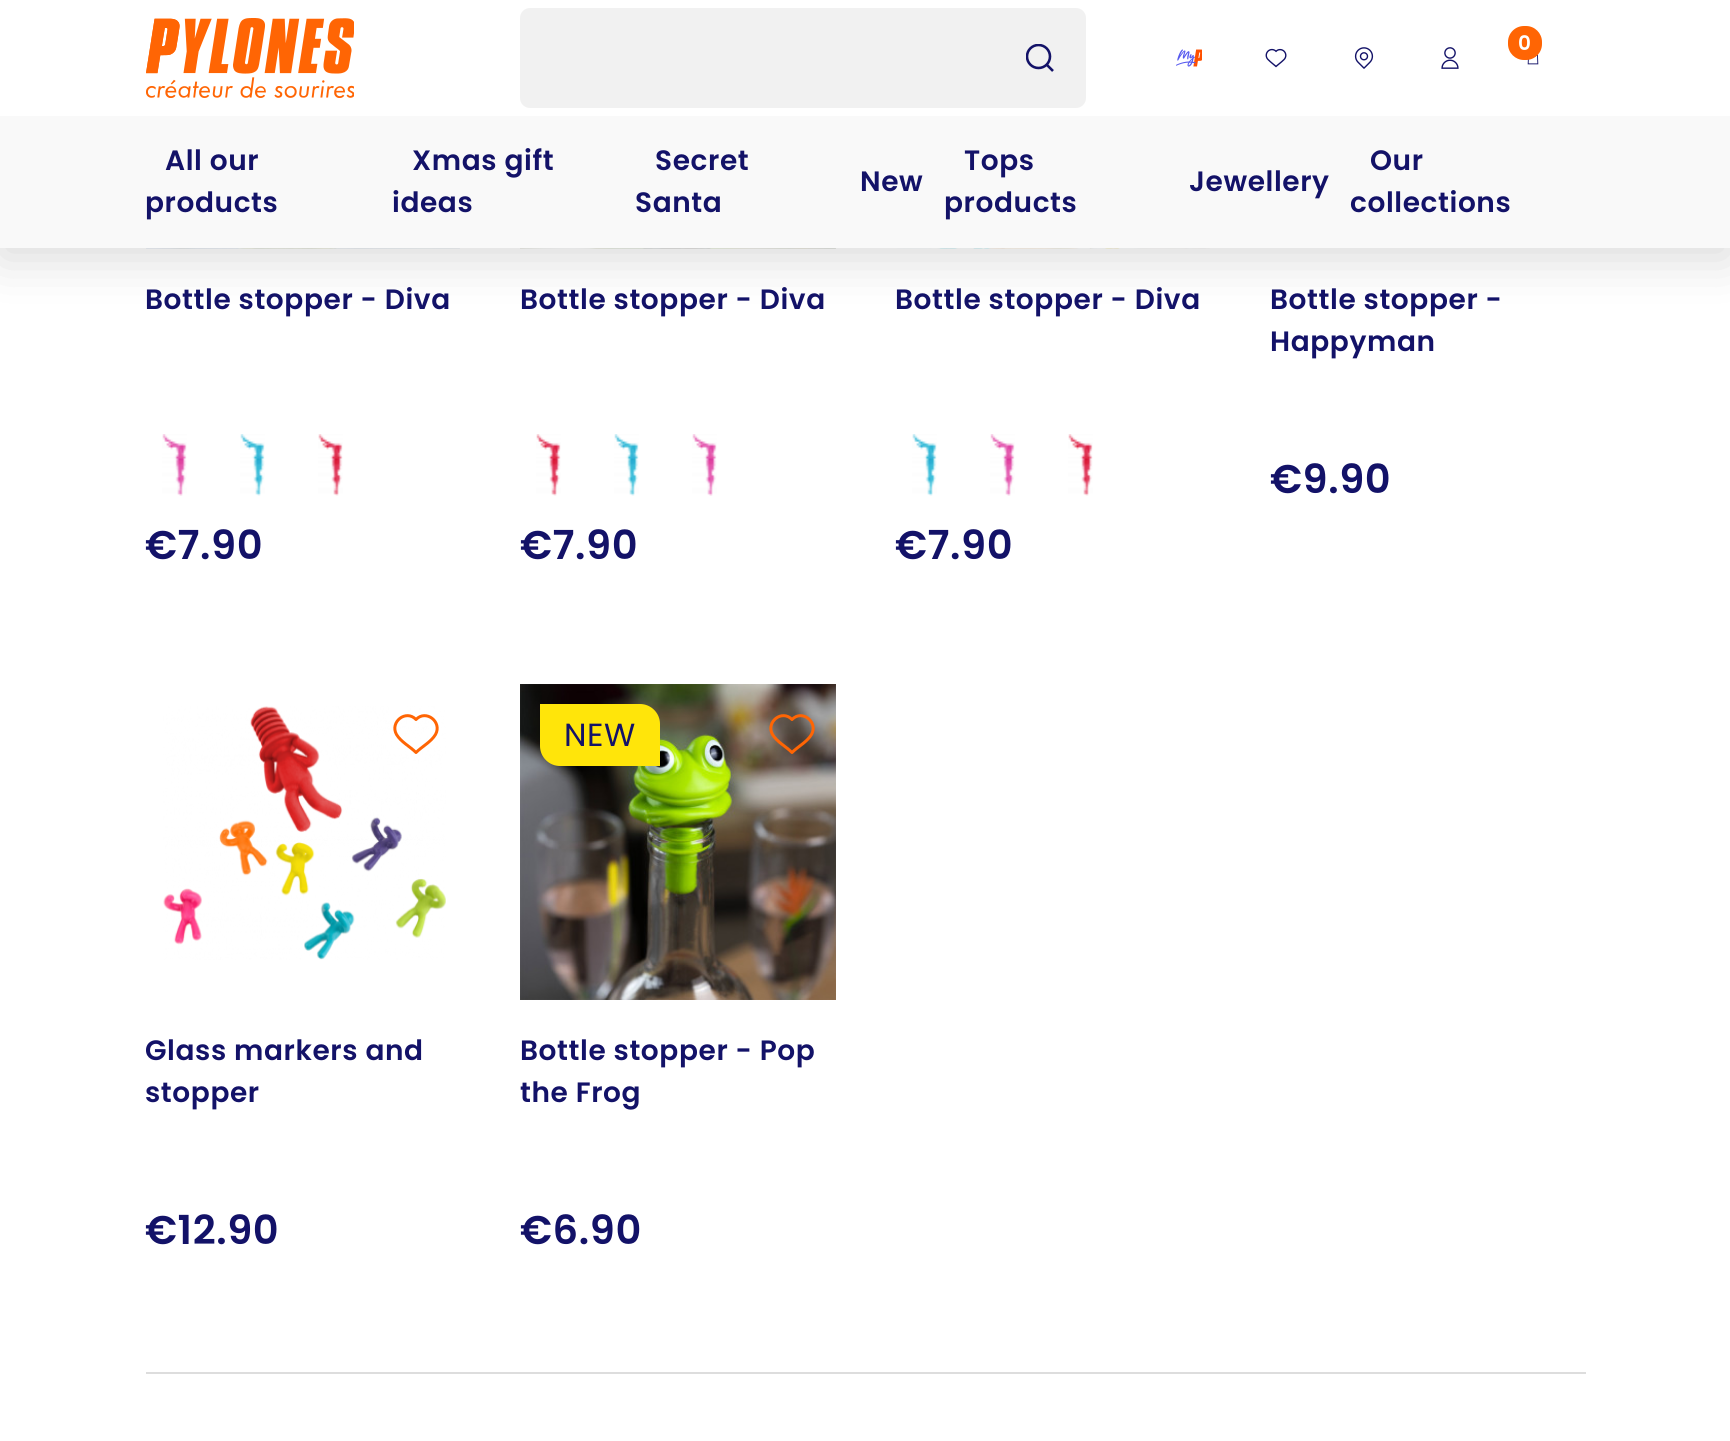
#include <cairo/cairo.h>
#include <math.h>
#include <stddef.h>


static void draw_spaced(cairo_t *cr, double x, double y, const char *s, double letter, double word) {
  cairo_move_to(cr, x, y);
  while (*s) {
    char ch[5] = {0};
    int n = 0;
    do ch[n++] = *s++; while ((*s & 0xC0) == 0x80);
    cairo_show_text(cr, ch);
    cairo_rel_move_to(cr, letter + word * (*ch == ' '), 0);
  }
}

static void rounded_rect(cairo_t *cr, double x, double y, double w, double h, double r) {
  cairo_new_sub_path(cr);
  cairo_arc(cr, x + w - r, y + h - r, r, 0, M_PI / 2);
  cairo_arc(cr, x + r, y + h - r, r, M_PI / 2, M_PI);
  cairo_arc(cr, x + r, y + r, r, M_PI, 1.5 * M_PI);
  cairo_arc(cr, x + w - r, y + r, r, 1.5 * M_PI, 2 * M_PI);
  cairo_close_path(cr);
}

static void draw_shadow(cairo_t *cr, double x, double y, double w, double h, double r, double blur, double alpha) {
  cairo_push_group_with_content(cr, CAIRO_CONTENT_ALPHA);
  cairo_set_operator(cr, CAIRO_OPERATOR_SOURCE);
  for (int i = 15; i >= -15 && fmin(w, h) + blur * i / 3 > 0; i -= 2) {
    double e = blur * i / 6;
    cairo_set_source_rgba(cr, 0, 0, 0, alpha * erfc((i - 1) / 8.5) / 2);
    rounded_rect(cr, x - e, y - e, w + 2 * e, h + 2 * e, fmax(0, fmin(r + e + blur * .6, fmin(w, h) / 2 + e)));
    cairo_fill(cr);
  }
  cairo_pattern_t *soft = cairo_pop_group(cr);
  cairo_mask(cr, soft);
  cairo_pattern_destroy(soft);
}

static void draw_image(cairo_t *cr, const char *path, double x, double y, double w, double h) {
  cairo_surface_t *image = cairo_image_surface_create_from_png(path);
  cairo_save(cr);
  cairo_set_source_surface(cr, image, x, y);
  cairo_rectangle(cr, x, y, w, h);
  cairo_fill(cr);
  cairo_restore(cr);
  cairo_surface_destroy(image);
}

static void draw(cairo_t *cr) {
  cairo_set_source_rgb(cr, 1, 1, 1);
  cairo_paint(cr);
  draw_image(cr, "images/7.png", 146, 248, 314, 1);
  draw_image(cr, "images/11.png", 520, 248, 316, 1);
  draw_image(cr, "images/15.png", 896, 248, 314, 1);
  cairo_set_source_rgb(cr, 0, 0, 0);
  draw_shadow(cr, 0, 10, 1730, 248, 0, 25, 0.15);
  cairo_set_source_rgb(cr, 1, 1, 1);
  cairo_rectangle(cr, 0, 0, 1730, 116);
  cairo_fill(cr);
  draw_image(cr, "images/1.png", 146, 18, 208, 80);
  cairo_set_source_rgb(cr, 241 / 255.0, 241 / 255.0, 241 / 255.0);
  rounded_rect(cr, 520, 8, 566, 100, 10);
  cairo_fill(cr);
  cairo_save(cr);
  cairo_rectangle(cr, 1026, 44, 28, 28);
  cairo_clip(cr);
  cairo_arc(cr, 1038.5, 56.5, 11.5, 0, 2 * M_PI);
  cairo_set_source_rgb(cr, 19 / 255.0, 18 / 255.0, 104 / 255.0);
  cairo_set_line_width(cr, 2.6);
  cairo_stroke(cr);
  cairo_restore(cr);
  cairo_new_path(cr);
  cairo_move_to(cr, 1046.5, 64.5);
  cairo_line_to(cr, 1053, 71);
  cairo_set_source_rgb(cr, 19 / 255.0, 18 / 255.0, 104 / 255.0);
  cairo_set_line_width(cr, 2.6);
  cairo_stroke(cr);
  draw_image(cr, "images/2.png", 1527, 54, 12, 11);
  cairo_set_source_rgb(cr, 1, 101 / 255.0, 4 / 255.0);
  rounded_rect(cr, 1508, 26, 34, 34, 16);
  cairo_fill(cr);
  draw_image(cr, "images/3.png", 1176, 49, 26, 18);
  draw_image(cr, "images/4.png", 1265, 48, 22, 20);
  draw_image(cr, "images/5.png", 1354, 47, 20, 22);
  draw_image(cr, "images/6.png", 1441, 47, 18, 22);
  cairo_set_source_rgb(cr, 249 / 255.0, 249 / 255.0, 249 / 255.0);
  cairo_rectangle(cr, 0, 116, 1730, 132);
  cairo_fill(cr);
  draw_image(cr, "images/8.png", 162, 434, 25, 62);
  draw_image(cr, "images/9.png", 240, 434, 25, 62);
  draw_image(cr, "images/10.png", 318, 434, 25, 62);
  draw_image(cr, "images/12.png", 536, 434, 25, 62);
  draw_image(cr, "images/13.png", 614, 434, 25, 62);
  draw_image(cr, "images/14.png", 692, 434, 25, 62);
  draw_image(cr, "images/9.png", 912, 434, 25, 62);
  draw_image(cr, "images/16.png", 990, 434, 25, 62);
  draw_image(cr, "images/12.png", 1068, 434, 25, 62);
  draw_image(cr, "images/17.png", 163, 706, 283, 254);
  cairo_new_path(cr);
  cairo_move_to(cr, 416, 752.5);
  cairo_curve_to(cr, 422, 746.5, 431, 742, 435.5, 734.5);
  cairo_curve_to(cr, 442.5, 722, 426, 709, 416, 719.5);
  cairo_curve_to(cr, 406, 709, 389.5, 722, 396.5, 734.5);
  cairo_curve_to(cr, 401, 742, 410, 746.5, 416, 752.5);
  cairo_close_path(cr);
  cairo_set_source_rgb(cr, 1, 101 / 255.0, 4 / 255.0);
  cairo_set_line_width(cr, 3);
  cairo_set_line_cap(cr, CAIRO_LINE_CAP_ROUND);
  cairo_set_line_join(cr, CAIRO_LINE_JOIN_ROUND);
  cairo_stroke(cr);
  draw_image(cr, "images/18.png", 520, 684, 316, 316);
  cairo_new_path(cr);
  cairo_move_to(cr, 792, 752.5);
  cairo_curve_to(cr, 798, 746.5, 807, 742, 811.5, 734.5);
  cairo_curve_to(cr, 818.5, 722, 802, 709, 792, 719.5);
  cairo_curve_to(cr, 782, 709, 765.5, 722, 772.5, 734.5);
  cairo_curve_to(cr, 777, 742, 786, 746.5, 792, 752.5);
  cairo_close_path(cr);
  cairo_stroke(cr);
  cairo_set_source_rgb(cr, 1, 229 / 255.0, 10 / 255.0);
  cairo_new_path(cr);
  cairo_move_to(cr, 540, 704);
  cairo_line_to(cr, 640, 704);
  cairo_curve_to(cr, 651, 704, 660, 713, 660, 724);
  cairo_line_to(cr, 660, 766);
  cairo_line_to(cr, 560, 766);
  cairo_curve_to(cr, 549, 766, 540, 757, 540, 746);
  cairo_close_path(cr);
  cairo_fill(cr);
  cairo_set_source_rgb(cr, 221 / 255.0, 221 / 255.0, 221 / 255.0);
  cairo_rectangle(cr, 146, 1372, 1440, 2);
  cairo_fill(cr);
  cairo_select_font_face(cr, "Poppins SemiBold", CAIRO_FONT_SLANT_NORMAL, CAIRO_FONT_WEIGHT_NORMAL);
  cairo_set_font_size(cr, 20);
  cairo_set_source_rgb(cr, 1, 1, 1);
  draw_spaced(cr, 1518, 50, "0", 0.6, 0);
  cairo_set_font_size(cr, 28);
  cairo_set_source_rgb(cr, 19 / 255.0, 18 / 255.0, 104 / 255.0);
  draw_spaced(cr, 165, 170, "All our", 0.6, 0);
  draw_spaced(cr, 145, 212, "products", 0.6, 0);
  draw_spaced(cr, 412, 170, "Xmas gift", 0.6, 0);
  draw_spaced(cr, 392, 212, "ideas", 0.6, 0);
  draw_spaced(cr, 655, 170, "Secret", 0.6, 0);
  draw_spaced(cr, 635, 212, "Santa", 0.6, 0);
  draw_spaced(cr, 860, 191, "New", 0.6, 0);
  draw_spaced(cr, 964, 170, "Tops", 0.6, 0);
  draw_spaced(cr, 944, 212, "products", 0.6, 0);
  draw_spaced(cr, 1189, 191, "Jewellery", 0.6, 0);
  draw_spaced(cr, 1370, 170, "Our", 0.6, 0);
  draw_spaced(cr, 1350, 212, "collections", 0.6, 0);
  draw_spaced(cr, 145, 309, "Bottle stopper - Diva", 0.6, 0);
  cairo_set_font_size(cr, 40);
  draw_spaced(cr, 145, 559, "€7.90", 0.6, 0);
  cairo_set_font_size(cr, 28);
  draw_spaced(cr, 520, 309, "Bottle stopper - Diva", 0.6, 0);
  cairo_set_font_size(cr, 40);
  draw_spaced(cr, 520, 559, "€7.90", 0.6, 0);
  cairo_set_font_size(cr, 28);
  draw_spaced(cr, 895, 309, "Bottle stopper - Diva", 0.6, 0);
  cairo_set_font_size(cr, 40);
  draw_spaced(cr, 895, 559, "€7.90", 0.6, 0);
  cairo_set_font_size(cr, 28);
  draw_spaced(cr, 1270, 309, "Bottle stopper -", 0.6, 0);
  draw_spaced(cr, 1270, 351, "Happyman", 0.6, 0);
  cairo_set_font_size(cr, 40);
  draw_spaced(cr, 1270, 493, "€9.90", 0.6, 0);
  cairo_set_font_size(cr, 28);
  draw_spaced(cr, 145, 1060, "Glass markers and", 0.6, 0);
  draw_spaced(cr, 145, 1102, "stopper", 0.6, 0);
  cairo_set_font_size(cr, 40);
  draw_spaced(cr, 145, 1244, "€12.90", 0.6, 0);
  cairo_select_font_face(cr, "Poppins", CAIRO_FONT_SLANT_NORMAL, CAIRO_FONT_WEIGHT_NORMAL);
  cairo_set_font_size(cr, 32);
  draw_spaced(cr, 564, 746, "NEW", 0.6, 0);
  cairo_select_font_face(cr, "Poppins SemiBold", CAIRO_FONT_SLANT_NORMAL, CAIRO_FONT_WEIGHT_NORMAL);
  cairo_set_font_size(cr, 28);
  draw_spaced(cr, 520, 1060, "Bottle stopper - Pop", 0.6, 0);
  draw_spaced(cr, 520, 1102, "the Frog", 0.6, 0);
  cairo_set_font_size(cr, 40);
  draw_spaced(cr, 520, 1244, "€6.90", 0.6, 0);
}

int main(void) {
  cairo_surface_t *surface = cairo_image_surface_create(CAIRO_FORMAT_RGB24, 1730, 1441);
  cairo_t *cr = cairo_create(surface);
  cairo_font_options_t *options = cairo_font_options_create();
  cairo_font_options_set_hint_metrics(options, CAIRO_HINT_METRICS_OFF);
  cairo_font_options_set_hint_style(options, CAIRO_HINT_STYLE_NONE);
  cairo_set_font_options(cr, options);
  cairo_set_miter_limit(cr, 4);
  draw(cr);
  cairo_surface_write_to_png(surface, "out.png");
  cairo_font_options_destroy(options);
  cairo_destroy(cr);
  cairo_surface_destroy(surface);
  return 0;
}
